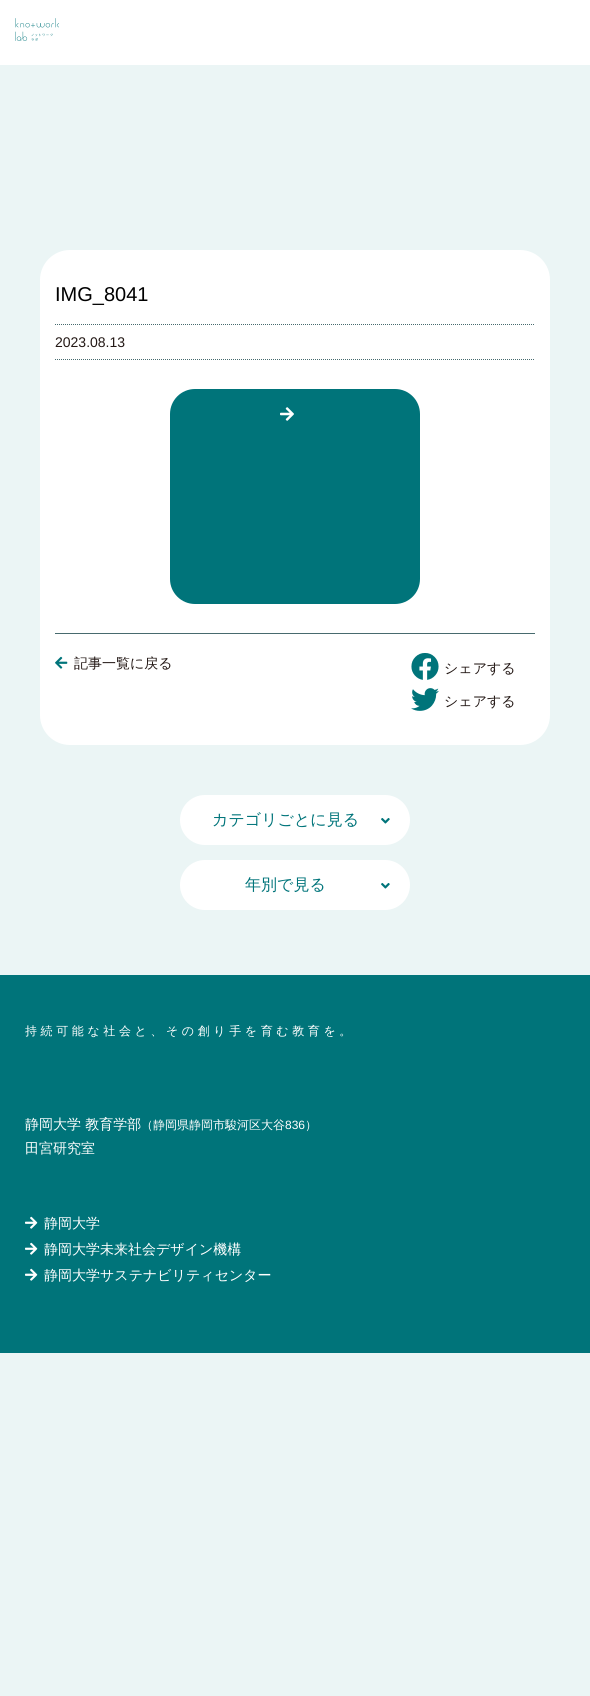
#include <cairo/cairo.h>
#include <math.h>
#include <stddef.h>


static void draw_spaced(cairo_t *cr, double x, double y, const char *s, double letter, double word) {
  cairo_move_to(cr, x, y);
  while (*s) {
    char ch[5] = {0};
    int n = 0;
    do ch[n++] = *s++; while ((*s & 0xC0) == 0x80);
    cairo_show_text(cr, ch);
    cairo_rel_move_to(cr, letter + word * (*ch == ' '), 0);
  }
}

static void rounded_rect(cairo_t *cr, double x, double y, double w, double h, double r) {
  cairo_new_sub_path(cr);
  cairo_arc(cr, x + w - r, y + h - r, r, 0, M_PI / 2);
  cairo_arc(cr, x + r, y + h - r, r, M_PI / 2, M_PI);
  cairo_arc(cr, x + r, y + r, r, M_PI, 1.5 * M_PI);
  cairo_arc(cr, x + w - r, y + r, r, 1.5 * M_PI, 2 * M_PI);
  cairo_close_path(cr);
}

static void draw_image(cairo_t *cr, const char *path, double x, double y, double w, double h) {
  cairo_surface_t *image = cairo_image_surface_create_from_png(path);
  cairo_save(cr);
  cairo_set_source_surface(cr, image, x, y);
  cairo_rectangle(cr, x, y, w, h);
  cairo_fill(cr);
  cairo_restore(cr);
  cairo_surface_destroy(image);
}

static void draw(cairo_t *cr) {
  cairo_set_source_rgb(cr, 235 / 255.0, 245 / 255.0, 245 / 255.0);
  cairo_paint(cr);
  cairo_set_source_rgb(cr, 1, 1, 1);
  cairo_rectangle(cr, 0, 0, 590, 65);
  cairo_fill(cr);
  draw_image(cr, "images/1.png", 15, 18, 44, 23);
  rounded_rect(cr, 40, 250, 510, 495, 30);
  cairo_fill(cr);
  cairo_new_path(cr);
  cairo_move_to(cr, 55, 324.5);
  cairo_line_to(cr, 535, 324.5);
  cairo_set_source_rgb(cr, 71 / 255.0, 106 / 255.0, 110 / 255.0);
  cairo_set_line_width(cr, 1);
  cairo_set_dash(cr, (double[]){1, 1}, 2, 0);
  cairo_stroke(cr);
  cairo_new_path(cr);
  cairo_move_to(cr, 55, 359.5);
  cairo_line_to(cr, 535, 359.5);
  cairo_stroke(cr);
  cairo_rectangle(cr, 55, 633, 480, 1);
  cairo_fill(cr);
  cairo_set_source_rgb(cr, 0, 116 / 255.0, 122 / 255.0);
  rounded_rect(cr, 170, 389, 250, 215, 25);
  cairo_fill(cr);
  draw_image(cr, "images/2.png", 280, 407, 14, 14);
  draw_image(cr, "images/3.png", 55, 656, 13, 13);
  draw_image(cr, "images/4.png", 411, 653, 28, 27);
  draw_image(cr, "images/5.png", 411, 688, 28, 23);
  cairo_set_source_rgb(cr, 1, 1, 1);
  rounded_rect(cr, 180, 795, 230, 50, 25);
  cairo_fill(cr);
  draw_image(cr, "images/6.png", 381, 818, 9, 6);
  rounded_rect(cr, 180, 860, 230, 50, 25);
  cairo_fill(cr);
  draw_image(cr, "images/6.png", 381, 883, 9, 6);
  cairo_set_source_rgb(cr, 0, 116 / 255.0, 122 / 255.0);
  cairo_rectangle(cr, 0, 975, 590, 378);
  cairo_fill(cr);
  draw_image(cr, "images/7.png", 25, 1216, 13, 13);
  draw_image(cr, "images/7.png", 25, 1242, 13, 13);
  draw_image(cr, "images/7.png", 25, 1268, 13, 13);
  cairo_select_font_face(cr, "Liberation Sans", CAIRO_FONT_SLANT_NORMAL, CAIRO_FONT_WEIGHT_NORMAL);
  cairo_set_font_size(cr, 20);
  cairo_set_source_rgb(cr, 0, 0, 0);
  cairo_move_to(cr, 55, 301);
  cairo_show_text(cr, "IMG_8041");
  cairo_set_font_size(cr, 14);
  cairo_set_source_rgb(cr, 35 / 255.0, 24 / 255.0, 21 / 255.0);
  cairo_move_to(cr, 55, 347);
  cairo_show_text(cr, "2023.08.13");
  cairo_select_font_face(cr, "WenQuanYi Zen Hei Medium", CAIRO_FONT_SLANT_NORMAL, CAIRO_FONT_WEIGHT_NORMAL);
  cairo_move_to(cr, 74, 668);
  cairo_show_text(cr, "記事一覧に戻る");
  cairo_move_to(cr, 444, 673);
  cairo_show_text(cr, "シェアする");
  cairo_move_to(cr, 444, 706);
  cairo_show_text(cr, "シェアする");
  cairo_set_font_size(cr, 16);
  cairo_set_source_rgb(cr, 0, 116 / 255.0, 122 / 255.0);
  cairo_move_to(cr, 212, 825);
  cairo_show_text(cr, "カテゴリごとに見る");
  cairo_move_to(cr, 245, 890);
  cairo_show_text(cr, "年別で見る");
  cairo_set_font_size(cr, 12);
  cairo_set_source_rgb(cr, 1, 1, 1);
  draw_spaced(cr, 25, 1035, "持続可能な社会と、その創り手を育む教育を。", 3.6, 0);
  cairo_set_font_size(cr, 14);
  cairo_move_to(cr, 25, 1129);
  cairo_show_text(cr, "静岡大学 教育学部");
  cairo_set_font_size(cr, 12);
  cairo_move_to(cr, 141, 1129);
  cairo_show_text(cr, "（静岡県静岡市駿河区大谷");
  cairo_select_font_face(cr, "Liberation Sans", CAIRO_FONT_SLANT_NORMAL, CAIRO_FONT_WEIGHT_NORMAL);
  cairo_move_to(cr, 285, 1129);
  cairo_show_text(cr, "836");
  cairo_select_font_face(cr, "WenQuanYi Zen Hei Medium", CAIRO_FONT_SLANT_NORMAL, CAIRO_FONT_WEIGHT_NORMAL);
  cairo_move_to(cr, 305, 1129);
  cairo_show_text(cr, "）");
  cairo_set_font_size(cr, 14);
  cairo_move_to(cr, 25, 1153);
  cairo_show_text(cr, "田宮研究室");
  cairo_move_to(cr, 44, 1228);
  cairo_show_text(cr, "静岡大学");
  cairo_move_to(cr, 44, 1254);
  cairo_show_text(cr, "静岡大学未来社会デザイン機構");
  cairo_move_to(cr, 44, 1280);
  cairo_show_text(cr, "静岡大学サステナビリティセンター");
}

int main(void) {
  cairo_surface_t *surface = cairo_image_surface_create(CAIRO_FORMAT_RGB24, 590, 1696);
  cairo_t *cr = cairo_create(surface);
  cairo_font_options_t *options = cairo_font_options_create();
  cairo_font_options_set_hint_metrics(options, CAIRO_HINT_METRICS_OFF);
  cairo_font_options_set_hint_style(options, CAIRO_HINT_STYLE_NONE);
  cairo_set_font_options(cr, options);
  cairo_set_miter_limit(cr, 4);
  draw(cr);
  cairo_surface_write_to_png(surface, "out.png");
  cairo_font_options_destroy(options);
  cairo_destroy(cr);
  cairo_surface_destroy(surface);
  return 0;
}
